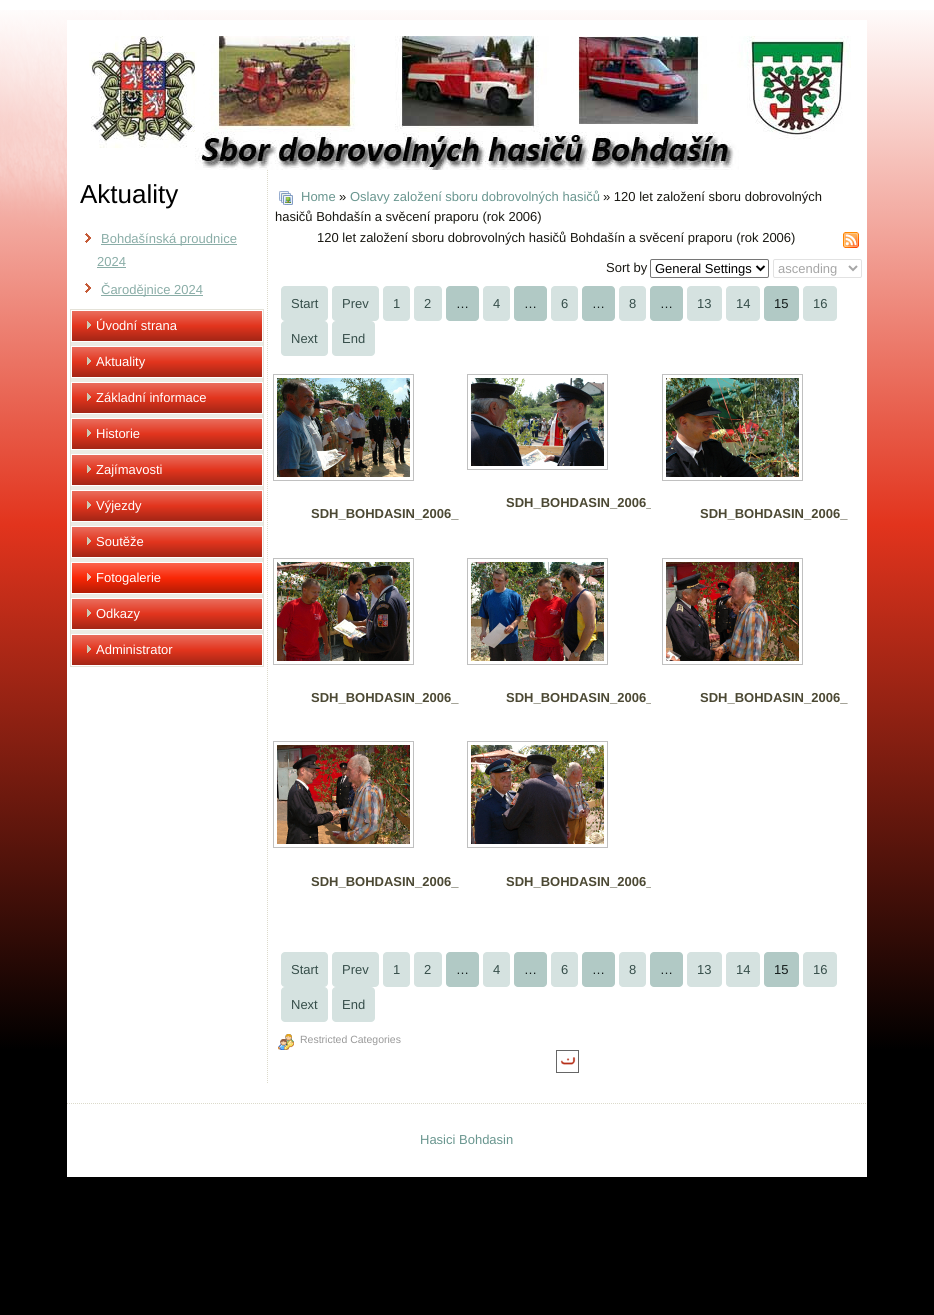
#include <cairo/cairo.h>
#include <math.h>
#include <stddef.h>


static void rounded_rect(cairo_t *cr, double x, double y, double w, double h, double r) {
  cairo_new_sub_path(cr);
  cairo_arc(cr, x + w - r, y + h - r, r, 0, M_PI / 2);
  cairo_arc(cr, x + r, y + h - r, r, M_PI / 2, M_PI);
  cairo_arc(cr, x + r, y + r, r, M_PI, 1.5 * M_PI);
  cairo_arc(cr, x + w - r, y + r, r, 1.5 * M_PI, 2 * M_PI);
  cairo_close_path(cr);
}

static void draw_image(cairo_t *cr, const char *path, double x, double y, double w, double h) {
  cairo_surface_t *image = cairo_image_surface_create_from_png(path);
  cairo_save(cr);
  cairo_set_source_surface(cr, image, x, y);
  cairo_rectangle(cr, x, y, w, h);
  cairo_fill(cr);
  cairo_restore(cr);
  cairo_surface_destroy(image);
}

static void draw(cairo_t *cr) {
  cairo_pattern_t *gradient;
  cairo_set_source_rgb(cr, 1, 1, 1);
  cairo_paint(cr);
  draw_image(cr, "images/1.png", 0, 10, 934, 1305);
  cairo_set_source_rgb(cr, 1, 1, 1);
  cairo_rectangle(cr, 67, 20, 800, 1157);
  cairo_fill(cr);
  draw_image(cr, "images/2.png", 89, 36, 762, 134);
  cairo_new_path(cr);
  cairo_move_to(cr, 267.5, 170);
  cairo_line_to(cr, 267.5, 1083);
  cairo_set_source_rgb(cr, 220 / 255.0, 218 / 255.0, 203 / 255.0);
  cairo_set_line_width(cr, 1);
  cairo_set_dash(cr, (double[]){1, 1}, 2, 0);
  cairo_stroke(cr);
  draw_image(cr, "images/3.png", 85, 233, 6, 10);
  cairo_set_source_rgb(cr, 138 / 255.0, 173 / 255.0, 167 / 255.0);
  cairo_rectangle(cr, 101, 244, 136, 1);
  cairo_fill(cr);
  cairo_rectangle(cr, 97, 267, 29, 1);
  cairo_fill(cr);
  draw_image(cr, "images/3.png", 85, 283, 6, 10);
  cairo_rectangle(cr, 101, 295, 102, 1);
  cairo_fill(cr);
  cairo_set_source_rgb(cr, 236 / 255.0, 235 / 255.0, 228 / 255.0);
  cairo_rectangle(cr, 71, 342, 192, 292);
  cairo_fill(cr);
  cairo_rectangle(cr, 70.5, 309.5, 193, 357);
  cairo_set_source_rgb(cr, 228 / 255.0, 226 / 255.0, 216 / 255.0);
  cairo_set_dash(cr, NULL, 0, 0);
  cairo_stroke(cr);
  gradient = cairo_pattern_create_linear(167, 310, 167, 342);
  cairo_pattern_add_color_stop_rgba(gradient, 0, 234 / 255.0, 113 / 255.0, 97 / 255.0, 1);
  cairo_pattern_add_color_stop_rgba(gradient, 0.5, 226 / 255.0, 52 / 255.0, 29 / 255.0, 1);
  cairo_pattern_add_color_stop_rgba(gradient, 1, 158 / 255.0, 37 / 255.0, 21 / 255.0, 1);
  cairo_set_source(cr, gradient);
  cairo_pattern_destroy(gradient);
  cairo_rectangle(cr, 72, 311, 190, 30);
  cairo_fill(cr);
  draw_image(cr, "images/4.png", 87, 321, 4, 8);
  gradient = cairo_pattern_create_linear(167, 346, 167, 378);
  cairo_pattern_add_color_stop_rgba(gradient, 0, 234 / 255.0, 113 / 255.0, 97 / 255.0, 1);
  cairo_pattern_add_color_stop_rgba(gradient, 0.5, 226 / 255.0, 52 / 255.0, 29 / 255.0, 1);
  cairo_pattern_add_color_stop_rgba(gradient, 1, 158 / 255.0, 37 / 255.0, 21 / 255.0, 1);
  cairo_set_source(cr, gradient);
  cairo_pattern_destroy(gradient);
  cairo_rectangle(cr, 72, 347, 190, 30);
  cairo_fill(cr);
  cairo_rectangle(cr, 71.5, 346.5, 191, 31);
  cairo_set_source_rgb(cr, 1, 1, 1);
  cairo_stroke(cr);
  draw_image(cr, "images/4.png", 87, 357, 4, 8);
  gradient = cairo_pattern_create_linear(167, 382, 167, 414);
  cairo_pattern_add_color_stop_rgba(gradient, 0, 234 / 255.0, 113 / 255.0, 97 / 255.0, 1);
  cairo_pattern_add_color_stop_rgba(gradient, 0.5, 226 / 255.0, 52 / 255.0, 29 / 255.0, 1);
  cairo_pattern_add_color_stop_rgba(gradient, 1, 158 / 255.0, 37 / 255.0, 21 / 255.0, 1);
  cairo_set_source(cr, gradient);
  cairo_pattern_destroy(gradient);
  cairo_rectangle(cr, 72, 383, 190, 30);
  cairo_fill(cr);
  cairo_rectangle(cr, 71.5, 382.5, 191, 31);
  cairo_set_source_rgb(cr, 1, 1, 1);
  cairo_stroke(cr);
  draw_image(cr, "images/4.png", 87, 393, 4, 8);
  gradient = cairo_pattern_create_linear(167, 418, 167, 450);
  cairo_pattern_add_color_stop_rgba(gradient, 0, 234 / 255.0, 113 / 255.0, 97 / 255.0, 1);
  cairo_pattern_add_color_stop_rgba(gradient, 0.5, 226 / 255.0, 52 / 255.0, 29 / 255.0, 1);
  cairo_pattern_add_color_stop_rgba(gradient, 1, 158 / 255.0, 37 / 255.0, 21 / 255.0, 1);
  cairo_set_source(cr, gradient);
  cairo_pattern_destroy(gradient);
  cairo_rectangle(cr, 72, 419, 190, 30);
  cairo_fill(cr);
  cairo_rectangle(cr, 71.5, 418.5, 191, 31);
  cairo_set_source_rgb(cr, 1, 1, 1);
  cairo_stroke(cr);
  draw_image(cr, "images/4.png", 87, 429, 4, 8);
  gradient = cairo_pattern_create_linear(167, 454, 167, 486);
  cairo_pattern_add_color_stop_rgba(gradient, 0, 234 / 255.0, 113 / 255.0, 97 / 255.0, 1);
  cairo_pattern_add_color_stop_rgba(gradient, 0.5, 226 / 255.0, 52 / 255.0, 29 / 255.0, 1);
  cairo_pattern_add_color_stop_rgba(gradient, 1, 158 / 255.0, 37 / 255.0, 21 / 255.0, 1);
  cairo_set_source(cr, gradient);
  cairo_pattern_destroy(gradient);
  cairo_rectangle(cr, 72, 455, 190, 30);
  cairo_fill(cr);
  cairo_rectangle(cr, 71.5, 454.5, 191, 31);
  cairo_set_source_rgb(cr, 1, 1, 1);
  cairo_stroke(cr);
  draw_image(cr, "images/4.png", 87, 465, 4, 8);
  gradient = cairo_pattern_create_linear(167, 490, 167, 522);
  cairo_pattern_add_color_stop_rgba(gradient, 0, 234 / 255.0, 113 / 255.0, 97 / 255.0, 1);
  cairo_pattern_add_color_stop_rgba(gradient, 0.5, 226 / 255.0, 52 / 255.0, 29 / 255.0, 1);
  cairo_pattern_add_color_stop_rgba(gradient, 1, 158 / 255.0, 37 / 255.0, 21 / 255.0, 1);
  cairo_set_source(cr, gradient);
  cairo_pattern_destroy(gradient);
  cairo_rectangle(cr, 72, 491, 190, 30);
  cairo_fill(cr);
  cairo_rectangle(cr, 71.5, 490.5, 191, 31);
  cairo_set_source_rgb(cr, 1, 1, 1);
  cairo_stroke(cr);
  draw_image(cr, "images/4.png", 87, 501, 4, 8);
  gradient = cairo_pattern_create_linear(167, 526, 167, 558);
  cairo_pattern_add_color_stop_rgba(gradient, 0, 234 / 255.0, 113 / 255.0, 97 / 255.0, 1);
  cairo_pattern_add_color_stop_rgba(gradient, 0.5, 226 / 255.0, 52 / 255.0, 29 / 255.0, 1);
  cairo_pattern_add_color_stop_rgba(gradient, 1, 158 / 255.0, 37 / 255.0, 21 / 255.0, 1);
  cairo_set_source(cr, gradient);
  cairo_pattern_destroy(gradient);
  cairo_rectangle(cr, 72, 527, 190, 30);
  cairo_fill(cr);
  cairo_rectangle(cr, 71.5, 526.5, 191, 31);
  cairo_set_source_rgb(cr, 1, 1, 1);
  cairo_stroke(cr);
  draw_image(cr, "images/4.png", 87, 537, 4, 8);
  gradient = cairo_pattern_create_linear(167, 562, 167, 594);
  cairo_pattern_add_color_stop_rgba(gradient, 0, 251 / 255.0, 104 / 255.0, 81 / 255.0, 1);
  cairo_pattern_add_color_stop_rgba(gradient, 0.5, 249 / 255.0, 39 / 255.0, 6 / 255.0, 1);
  cairo_pattern_add_color_stop_rgba(gradient, 1, 174 / 255.0, 27 / 255.0, 4 / 255.0, 1);
  cairo_set_source(cr, gradient);
  cairo_pattern_destroy(gradient);
  cairo_rectangle(cr, 72, 563, 190, 30);
  cairo_fill(cr);
  cairo_rectangle(cr, 71.5, 562.5, 191, 31);
  cairo_set_source_rgb(cr, 1, 1, 1);
  cairo_stroke(cr);
  draw_image(cr, "images/5.png", 87, 573, 4, 8);
  gradient = cairo_pattern_create_linear(167, 598, 167, 630);
  cairo_pattern_add_color_stop_rgba(gradient, 0, 234 / 255.0, 113 / 255.0, 97 / 255.0, 1);
  cairo_pattern_add_color_stop_rgba(gradient, 0.5, 226 / 255.0, 52 / 255.0, 29 / 255.0, 1);
  cairo_pattern_add_color_stop_rgba(gradient, 1, 158 / 255.0, 37 / 255.0, 21 / 255.0, 1);
  cairo_set_source(cr, gradient);
  cairo_pattern_destroy(gradient);
  cairo_rectangle(cr, 72, 599, 190, 30);
  cairo_fill(cr);
  cairo_rectangle(cr, 71.5, 598.5, 191, 31);
  cairo_set_source_rgb(cr, 1, 1, 1);
  cairo_stroke(cr);
  draw_image(cr, "images/4.png", 87, 609, 4, 8);
  gradient = cairo_pattern_create_linear(167, 634, 167, 666);
  cairo_pattern_add_color_stop_rgba(gradient, 0, 234 / 255.0, 113 / 255.0, 97 / 255.0, 1);
  cairo_pattern_add_color_stop_rgba(gradient, 0.5, 226 / 255.0, 52 / 255.0, 29 / 255.0, 1);
  cairo_pattern_add_color_stop_rgba(gradient, 1, 158 / 255.0, 37 / 255.0, 21 / 255.0, 1);
  cairo_set_source(cr, gradient);
  cairo_pattern_destroy(gradient);
  cairo_rectangle(cr, 72, 635, 190, 30);
  cairo_fill(cr);
  draw_image(cr, "images/4.png", 87, 645, 4, 8);
  draw_image(cr, "images/6.png", 279, 191, 14, 14);
  draw_image(cr, "images/7.png", 843, 232, 16, 16);
  rounded_rect(cr, 650.5, 259.5, 118, 18, 1.5);
  cairo_set_source_rgb(cr, 118 / 255.0, 118 / 255.0, 118 / 255.0);
  cairo_stroke(cr);
  cairo_new_path(cr);
  cairo_move_to(cr, 756.5, 266);
  cairo_line_to(cr, 760.5, 270);
  cairo_line_to(cr, 764.5, 266);
  cairo_set_source_rgb(cr, 0, 0, 0);
  cairo_set_line_width(cr, 2);
  cairo_stroke(cr);
  rounded_rect(cr, 773.5, 259.5, 88, 18, 1.5);
  cairo_set_source_rgb(cr, 226 / 255.0, 226 / 255.0, 226 / 255.0);
  cairo_set_line_width(cr, 1);
  cairo_stroke(cr);
  cairo_new_path(cr);
  cairo_move_to(cr, 849, 266);
  cairo_line_to(cr, 853, 270);
  cairo_line_to(cr, 857, 266);
  cairo_set_source_rgb(cr, 166 / 255.0, 166 / 255.0, 166 / 255.0);
  cairo_set_line_width(cr, 2);
  cairo_stroke(cr);
  cairo_set_source_rgb(cr, 213 / 255.0, 226 / 255.0, 224 / 255.0);
  rounded_rect(cr, 281, 286, 47, 35, 4);
  cairo_fill(cr);
  rounded_rect(cr, 332, 286, 47, 35, 4);
  cairo_fill(cr);
  rounded_rect(cr, 383, 286, 27, 35, 4);
  cairo_fill(cr);
  rounded_rect(cr, 414, 286, 28, 35, 4);
  cairo_fill(cr);
  cairo_set_source_rgb(cr, 177 / 255.0, 201 / 255.0, 197 / 255.0);
  rounded_rect(cr, 446, 286, 33, 35, 4);
  cairo_fill(cr);
  cairo_set_source_rgb(cr, 213 / 255.0, 226 / 255.0, 224 / 255.0);
  rounded_rect(cr, 483, 286, 27, 35, 4);
  cairo_fill(cr);
  cairo_set_source_rgb(cr, 177 / 255.0, 201 / 255.0, 197 / 255.0);
  rounded_rect(cr, 514, 286, 33, 35, 4);
  cairo_fill(cr);
  cairo_set_source_rgb(cr, 213 / 255.0, 226 / 255.0, 224 / 255.0);
  rounded_rect(cr, 551, 286, 27, 35, 4);
  cairo_fill(cr);
  cairo_set_source_rgb(cr, 177 / 255.0, 201 / 255.0, 197 / 255.0);
  rounded_rect(cr, 582, 286, 33, 35, 4);
  cairo_fill(cr);
  cairo_set_source_rgb(cr, 213 / 255.0, 226 / 255.0, 224 / 255.0);
  rounded_rect(cr, 619, 286, 27, 35, 4);
  cairo_fill(cr);
  cairo_set_source_rgb(cr, 177 / 255.0, 201 / 255.0, 197 / 255.0);
  rounded_rect(cr, 650, 286, 33, 35, 4);
  cairo_fill(cr);
  cairo_set_source_rgb(cr, 213 / 255.0, 226 / 255.0, 224 / 255.0);
  rounded_rect(cr, 687, 286, 35, 35, 4);
  cairo_fill(cr);
  rounded_rect(cr, 726, 286, 34, 35, 4);
  cairo_fill(cr);
  cairo_set_source_rgb(cr, 177 / 255.0, 201 / 255.0, 197 / 255.0);
  rounded_rect(cr, 764, 286, 35, 35, 4);
  cairo_fill(cr);
  cairo_set_source_rgb(cr, 213 / 255.0, 226 / 255.0, 224 / 255.0);
  rounded_rect(cr, 803, 286, 34, 35, 4);
  cairo_fill(cr);
  rounded_rect(cr, 281, 321, 47, 35, 4);
  cairo_fill(cr);
  rounded_rect(cr, 332, 321, 43, 35, 4);
  cairo_fill(cr);
  cairo_rectangle(cr, 467.5, 374.5, 140, 95);
  cairo_set_source_rgb(cr, 192 / 255.0, 192 / 255.0, 192 / 255.0);
  cairo_set_line_width(cr, 1);
  cairo_stroke(cr);
  draw_image(cr, "images/8.png", 471, 378, 133, 88);
  cairo_rectangle(cr, 273.5, 374.5, 140, 106);
  cairo_stroke(cr);
  draw_image(cr, "images/9.png", 277, 378, 133, 99);
  cairo_rectangle(cr, 662.5, 374.5, 140, 106);
  cairo_stroke(cr);
  draw_image(cr, "images/10.png", 666, 378, 133, 99);
  cairo_rectangle(cr, 273.5, 558.5, 140, 106);
  cairo_stroke(cr);
  draw_image(cr, "images/11.png", 277, 562, 133, 99);
  cairo_rectangle(cr, 467.5, 558.5, 140, 106);
  cairo_stroke(cr);
  draw_image(cr, "images/12.png", 471, 562, 133, 99);
  cairo_rectangle(cr, 662.5, 558.5, 140, 106);
  cairo_stroke(cr);
  draw_image(cr, "images/13.png", 666, 562, 133, 99);
  cairo_rectangle(cr, 273.5, 741.5, 140, 106);
  cairo_stroke(cr);
  draw_image(cr, "images/14.png", 277, 745, 133, 99);
  cairo_rectangle(cr, 467.5, 741.5, 140, 106);
  cairo_stroke(cr);
  draw_image(cr, "images/15.png", 471, 745, 133, 99);
  cairo_set_source_rgb(cr, 213 / 255.0, 226 / 255.0, 224 / 255.0);
  rounded_rect(cr, 281, 952, 47, 35, 4);
  cairo_fill(cr);
  rounded_rect(cr, 332, 952, 47, 35, 4);
  cairo_fill(cr);
  rounded_rect(cr, 383, 952, 27, 35, 4);
  cairo_fill(cr);
  rounded_rect(cr, 414, 952, 28, 35, 4);
  cairo_fill(cr);
  cairo_set_source_rgb(cr, 177 / 255.0, 201 / 255.0, 197 / 255.0);
  rounded_rect(cr, 446, 952, 33, 35, 4);
  cairo_fill(cr);
  cairo_set_source_rgb(cr, 213 / 255.0, 226 / 255.0, 224 / 255.0);
  rounded_rect(cr, 483, 952, 27, 35, 4);
  cairo_fill(cr);
  cairo_set_source_rgb(cr, 177 / 255.0, 201 / 255.0, 197 / 255.0);
  rounded_rect(cr, 514, 952, 33, 35, 4);
  cairo_fill(cr);
  cairo_set_source_rgb(cr, 213 / 255.0, 226 / 255.0, 224 / 255.0);
  rounded_rect(cr, 551, 952, 27, 35, 4);
  cairo_fill(cr);
  cairo_set_source_rgb(cr, 177 / 255.0, 201 / 255.0, 197 / 255.0);
  rounded_rect(cr, 582, 952, 33, 35, 4);
  cairo_fill(cr);
  cairo_set_source_rgb(cr, 213 / 255.0, 226 / 255.0, 224 / 255.0);
  rounded_rect(cr, 619, 952, 27, 35, 4);
  cairo_fill(cr);
  cairo_set_source_rgb(cr, 177 / 255.0, 201 / 255.0, 197 / 255.0);
  rounded_rect(cr, 650, 952, 33, 35, 4);
  cairo_fill(cr);
  cairo_set_source_rgb(cr, 213 / 255.0, 226 / 255.0, 224 / 255.0);
  rounded_rect(cr, 687, 952, 35, 35, 4);
  cairo_fill(cr);
  rounded_rect(cr, 726, 952, 34, 35, 4);
  cairo_fill(cr);
  cairo_set_source_rgb(cr, 177 / 255.0, 201 / 255.0, 197 / 255.0);
  rounded_rect(cr, 764, 952, 35, 35, 4);
  cairo_fill(cr);
  cairo_set_source_rgb(cr, 213 / 255.0, 226 / 255.0, 224 / 255.0);
  rounded_rect(cr, 803, 952, 34, 35, 4);
  cairo_fill(cr);
  rounded_rect(cr, 281, 987, 47, 35, 4);
  cairo_fill(cr);
  rounded_rect(cr, 332, 987, 43, 35, 4);
  cairo_fill(cr);
  draw_image(cr, "images/16.png", 278, 1034, 16, 16);
  cairo_rectangle(cr, 556.5, 1050.5, 22, 22);
  cairo_set_source_rgb(cr, 102 / 255.0, 102 / 255.0, 102 / 255.0);
  cairo_stroke(cr);
  draw_image(cr, "images/17.png", 560, 1057, 16, 8);
  cairo_new_path(cr);
  cairo_move_to(cr, 67, 1103.5);
  cairo_line_to(cr, 867, 1103.5);
  cairo_set_source_rgb(cr, 220 / 255.0, 218 / 255.0, 203 / 255.0);
  cairo_set_dash(cr, (double[]){1, 1}, 2, 0);
  cairo_stroke(cr);
  cairo_select_font_face(cr, "Liberation Sans", CAIRO_FONT_SLANT_NORMAL, CAIRO_FONT_WEIGHT_NORMAL);
  cairo_set_font_size(cr, 26);
  cairo_set_source_rgb(cr, 0, 0, 0);
  cairo_move_to(cr, 80, 203);
  cairo_show_text(cr, "Aktuality");
  cairo_set_font_size(cr, 13);
  cairo_set_source_rgb(cr, 138 / 255.0, 173 / 255.0, 167 / 255.0);
  cairo_move_to(cr, 101, 243);
  cairo_show_text(cr, "Bohdašínská proudnice");
  cairo_move_to(cr, 97, 266);
  cairo_show_text(cr, "2024");
  cairo_move_to(cr, 101, 294);
  cairo_show_text(cr, "Čarodějnice 2024");
  cairo_set_source_rgb(cr, 1, 1, 1);
  cairo_move_to(cr, 96, 330);
  cairo_show_text(cr, "Úvodní strana");
  cairo_move_to(cr, 96, 366);
  cairo_show_text(cr, "Aktuality");
  cairo_move_to(cr, 96, 402);
  cairo_show_text(cr, "Základní informace");
  cairo_move_to(cr, 96, 438);
  cairo_show_text(cr, "Historie");
  cairo_move_to(cr, 96, 474);
  cairo_show_text(cr, "Zajímavosti");
  cairo_move_to(cr, 96, 510);
  cairo_show_text(cr, "Výjezdy");
  cairo_move_to(cr, 96, 546);
  cairo_show_text(cr, "Soutěže");
  cairo_move_to(cr, 96, 582);
  cairo_show_text(cr, "Fotogalerie");
  cairo_move_to(cr, 96, 618);
  cairo_show_text(cr, "Odkazy");
  cairo_move_to(cr, 96, 654);
  cairo_show_text(cr, "Administrator");
  cairo_set_source_rgb(cr, 105 / 255.0, 150 / 255.0, 143 / 255.0);
  cairo_move_to(cr, 301, 201);
  cairo_show_text(cr, "Home");
  cairo_set_source_rgb(cr, 24 / 255.0, 23 / 255.0, 17 / 255.0);
  cairo_move_to(cr, 339, 201);
  cairo_show_text(cr, "»");
  cairo_set_source_rgb(cr, 105 / 255.0, 150 / 255.0, 143 / 255.0);
  cairo_move_to(cr, 350, 201);
  cairo_show_text(cr, "Oslavy založení sboru dobrovolných hasičů");
  cairo_set_source_rgb(cr, 24 / 255.0, 23 / 255.0, 17 / 255.0);
  cairo_move_to(cr, 603, 201);
  cairo_show_text(cr, "» 120 let založení sboru dobrovolných");
  cairo_move_to(cr, 275, 221);
  cairo_show_text(cr, "hasičů Bohdašín a svěcení praporu (rok 2006)");
  cairo_move_to(cr, 317, 242);
  cairo_show_text(cr, "120 let založení sboru dobrovolných hasičů Bohdašín a svěcení praporu (rok 2006)");
  cairo_move_to(cr, 606, 272);
  cairo_show_text(cr, "Sort by");
  cairo_set_source_rgb(cr, 0, 0, 0);
  cairo_move_to(cr, 655, 273);
  cairo_show_text(cr, "General Settings");
  cairo_set_source_rgb(cr, 166 / 255.0, 166 / 255.0, 166 / 255.0);
  cairo_move_to(cr, 778, 273);
  cairo_show_text(cr, "ascending");
  cairo_set_source_rgb(cr, 54 / 255.0, 78 / 255.0, 74 / 255.0);
  cairo_move_to(cr, 291, 308);
  cairo_show_text(cr, "Start");
  cairo_move_to(cr, 342, 308);
  cairo_show_text(cr, "Prev");
  cairo_move_to(cr, 393, 308);
  cairo_show_text(cr, "1");
  cairo_move_to(cr, 424, 308);
  cairo_show_text(cr, "2");
  cairo_set_source_rgb(cr, 19 / 255.0, 27 / 255.0, 26 / 255.0);
  cairo_move_to(cr, 456, 308);
  cairo_show_text(cr, "…");
  cairo_set_source_rgb(cr, 54 / 255.0, 78 / 255.0, 74 / 255.0);
  cairo_move_to(cr, 493, 308);
  cairo_show_text(cr, "4");
  cairo_set_source_rgb(cr, 19 / 255.0, 27 / 255.0, 26 / 255.0);
  cairo_move_to(cr, 524, 308);
  cairo_show_text(cr, "…");
  cairo_set_source_rgb(cr, 54 / 255.0, 78 / 255.0, 74 / 255.0);
  cairo_move_to(cr, 561, 308);
  cairo_show_text(cr, "6");
  cairo_set_source_rgb(cr, 19 / 255.0, 27 / 255.0, 26 / 255.0);
  cairo_move_to(cr, 592, 308);
  cairo_show_text(cr, "…");
  cairo_set_source_rgb(cr, 54 / 255.0, 78 / 255.0, 74 / 255.0);
  cairo_move_to(cr, 629, 308);
  cairo_show_text(cr, "8");
  cairo_set_source_rgb(cr, 19 / 255.0, 27 / 255.0, 26 / 255.0);
  cairo_move_to(cr, 660, 308);
  cairo_show_text(cr, "…");
  cairo_set_source_rgb(cr, 54 / 255.0, 78 / 255.0, 74 / 255.0);
  cairo_move_to(cr, 697, 308);
  cairo_show_text(cr, "13");
  cairo_move_to(cr, 736, 308);
  cairo_show_text(cr, "14");
  cairo_set_source_rgb(cr, 19 / 255.0, 27 / 255.0, 26 / 255.0);
  cairo_move_to(cr, 774, 308);
  cairo_show_text(cr, "15");
  cairo_set_source_rgb(cr, 54 / 255.0, 78 / 255.0, 74 / 255.0);
  cairo_move_to(cr, 813, 308);
  cairo_show_text(cr, "16");
  cairo_move_to(cr, 291, 343);
  cairo_show_text(cr, "Next");
  cairo_move_to(cr, 342, 343);
  cairo_show_text(cr, "End");
  cairo_save(cr);
  cairo_rectangle(cr, 489, 474, 162, 39);
  cairo_clip(cr);
  cairo_select_font_face(cr, "Liberation Sans", CAIRO_FONT_SLANT_NORMAL, CAIRO_FONT_WEIGHT_BOLD);
  cairo_set_source_rgb(cr, 76 / 255.0, 73 / 255.0, 52 / 255.0);
  cairo_move_to(cr, 506, 507);
  cairo_show_text(cr, "SDH_BOHDASIN_2006_");
  cairo_restore(cr);
  cairo_select_font_face(cr, "Liberation Sans", CAIRO_FONT_SLANT_NORMAL, CAIRO_FONT_WEIGHT_BOLD);
  cairo_set_source_rgb(cr, 76 / 255.0, 73 / 255.0, 52 / 255.0);
  cairo_move_to(cr, 311, 518);
  cairo_show_text(cr, "SDH_BOHDASIN_2006_");
  cairo_move_to(cr, 700, 518);
  cairo_show_text(cr, "SDH_BOHDASIN_2006_");
  cairo_move_to(cr, 311, 702);
  cairo_show_text(cr, "SDH_BOHDASIN_2006_");
  cairo_save(cr);
  cairo_rectangle(cr, 489, 669, 162, 39);
  cairo_clip(cr);
  cairo_move_to(cr, 506, 702);
  cairo_show_text(cr, "SDH_BOHDASIN_2006_");
  cairo_restore(cr);
  cairo_move_to(cr, 700, 702);
  cairo_show_text(cr, "SDH_BOHDASIN_2006_");
  cairo_move_to(cr, 311, 886);
  cairo_show_text(cr, "SDH_BOHDASIN_2006_");
  cairo_save(cr);
  cairo_rectangle(cr, 489, 852, 162, 39);
  cairo_clip(cr);
  cairo_move_to(cr, 506, 886);
  cairo_show_text(cr, "SDH_BOHDASIN_2006_");
  cairo_restore(cr);
  cairo_select_font_face(cr, "Liberation Sans", CAIRO_FONT_SLANT_NORMAL, CAIRO_FONT_WEIGHT_NORMAL);
  cairo_set_source_rgb(cr, 54 / 255.0, 78 / 255.0, 74 / 255.0);
  cairo_move_to(cr, 291, 974);
  cairo_show_text(cr, "Start");
  cairo_move_to(cr, 342, 974);
  cairo_show_text(cr, "Prev");
  cairo_move_to(cr, 393, 974);
  cairo_show_text(cr, "1");
  cairo_move_to(cr, 424, 974);
  cairo_show_text(cr, "2");
  cairo_set_source_rgb(cr, 19 / 255.0, 27 / 255.0, 26 / 255.0);
  cairo_move_to(cr, 456, 974);
  cairo_show_text(cr, "…");
  cairo_set_source_rgb(cr, 54 / 255.0, 78 / 255.0, 74 / 255.0);
  cairo_move_to(cr, 493, 974);
  cairo_show_text(cr, "4");
  cairo_set_source_rgb(cr, 19 / 255.0, 27 / 255.0, 26 / 255.0);
  cairo_move_to(cr, 524, 974);
  cairo_show_text(cr, "…");
  cairo_set_source_rgb(cr, 54 / 255.0, 78 / 255.0, 74 / 255.0);
  cairo_move_to(cr, 561, 974);
  cairo_show_text(cr, "6");
  cairo_set_source_rgb(cr, 19 / 255.0, 27 / 255.0, 26 / 255.0);
  cairo_move_to(cr, 592, 974);
  cairo_show_text(cr, "…");
  cairo_set_source_rgb(cr, 54 / 255.0, 78 / 255.0, 74 / 255.0);
  cairo_move_to(cr, 629, 974);
  cairo_show_text(cr, "8");
  cairo_set_source_rgb(cr, 19 / 255.0, 27 / 255.0, 26 / 255.0);
  cairo_move_to(cr, 660, 974);
  cairo_show_text(cr, "…");
  cairo_set_source_rgb(cr, 54 / 255.0, 78 / 255.0, 74 / 255.0);
  cairo_move_to(cr, 697, 974);
  cairo_show_text(cr, "13");
  cairo_move_to(cr, 736, 974);
  cairo_show_text(cr, "14");
  cairo_set_source_rgb(cr, 19 / 255.0, 27 / 255.0, 26 / 255.0);
  cairo_move_to(cr, 774, 974);
  cairo_show_text(cr, "15");
  cairo_set_source_rgb(cr, 54 / 255.0, 78 / 255.0, 74 / 255.0);
  cairo_move_to(cr, 813, 974);
  cairo_show_text(cr, "16");
  cairo_move_to(cr, 291, 1009);
  cairo_show_text(cr, "Next");
  cairo_move_to(cr, 342, 1009);
  cairo_show_text(cr, "End");
  cairo_set_font_size(cr, 10.5);
  cairo_set_source_rgb(cr, 153 / 255.0, 153 / 255.0, 153 / 255.0);
  cairo_move_to(cr, 300, 1043);
  cairo_show_text(cr, "Restricted Categories");
  cairo_set_font_size(cr, 13);
  cairo_set_source_rgb(cr, 105 / 255.0, 150 / 255.0, 143 / 255.0);
  cairo_move_to(cr, 420, 1144);
  cairo_show_text(cr, "Hasici Bohdasin");
}

int main(void) {
  cairo_surface_t *surface = cairo_image_surface_create(CAIRO_FORMAT_RGB24, 934, 1315);
  cairo_t *cr = cairo_create(surface);
  cairo_font_options_t *options = cairo_font_options_create();
  cairo_font_options_set_hint_metrics(options, CAIRO_HINT_METRICS_OFF);
  cairo_font_options_set_hint_style(options, CAIRO_HINT_STYLE_NONE);
  cairo_set_font_options(cr, options);
  cairo_set_miter_limit(cr, 4);
  draw(cr);
  cairo_surface_write_to_png(surface, "out.png");
  cairo_font_options_destroy(options);
  cairo_destroy(cr);
  cairo_surface_destroy(surface);
  return 0;
}
